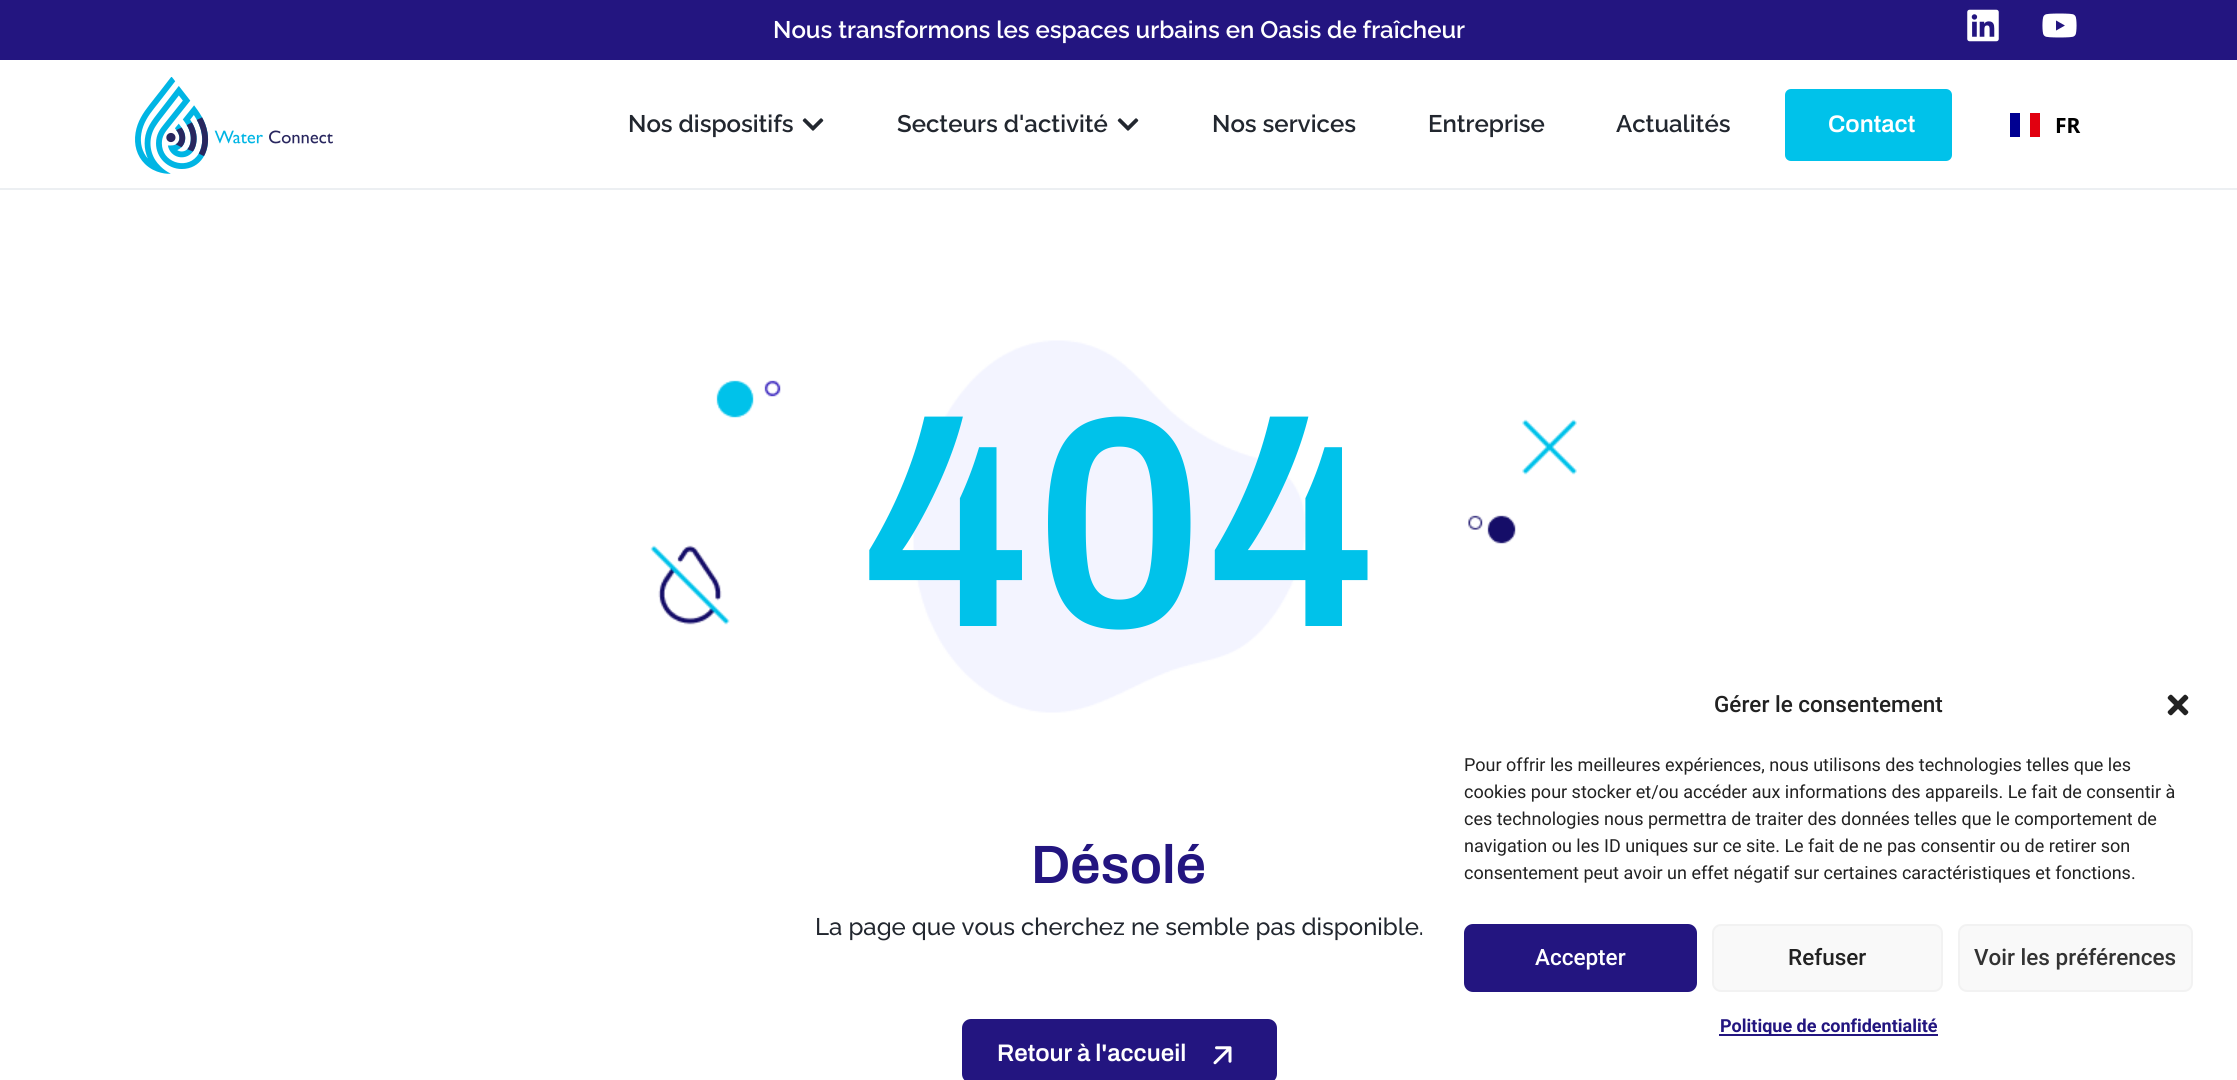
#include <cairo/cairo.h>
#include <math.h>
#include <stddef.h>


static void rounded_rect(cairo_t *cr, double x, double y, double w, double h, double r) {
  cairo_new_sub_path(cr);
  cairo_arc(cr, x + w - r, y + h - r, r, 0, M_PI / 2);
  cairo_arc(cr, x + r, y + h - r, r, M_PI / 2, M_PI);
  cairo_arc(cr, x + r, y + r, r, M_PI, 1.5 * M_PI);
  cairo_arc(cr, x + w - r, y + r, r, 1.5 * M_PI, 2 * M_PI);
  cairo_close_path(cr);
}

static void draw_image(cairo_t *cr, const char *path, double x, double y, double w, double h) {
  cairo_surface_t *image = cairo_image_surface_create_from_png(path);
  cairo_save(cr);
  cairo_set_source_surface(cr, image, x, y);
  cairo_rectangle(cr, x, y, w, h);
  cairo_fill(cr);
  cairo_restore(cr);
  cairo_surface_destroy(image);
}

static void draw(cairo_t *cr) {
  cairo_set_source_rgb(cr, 1, 1, 1);
  cairo_paint(cr);
  cairo_set_source_rgb(cr, 35 / 255.0, 21 / 255.0, 128 / 255.0);
  cairo_rectangle(cr, 0, 0, 2237, 60);
  cairo_fill(cr);
  draw_image(cr, "images/1.png", 1967, 9, 32, 33);
  draw_image(cr, "images/2.png", 2042, 13, 35, 25);
  cairo_set_source_rgb(cr, 236 / 255.0, 239 / 255.0, 242 / 255.0);
  cairo_rectangle(cr, 0, 188, 2237, 2);
  cairo_fill(cr);
  draw_image(cr, "images/3.png", 135, 77, 198, 97);
  draw_image(cr, "images/4.png", 802, 118, 22, 13);
  draw_image(cr, "images/4.png", 1117, 118, 22, 13);
  cairo_set_source_rgb(cr, 0, 194 / 255.0, 234 / 255.0);
  rounded_rect(cr, 1785, 89, 167, 72, 6);
  cairo_fill(cr);
  cairo_set_source_rgb(cr, 0, 0, 145 / 255.0);
  cairo_rectangle(cr, 2010, 113, 10, 24);
  cairo_fill(cr);
  cairo_set_source_rgb(cr, 225 / 255.0, 0, 15 / 255.0);
  cairo_rectangle(cr, 2030, 113, 10, 24);
  cairo_fill(cr);
  draw_image(cr, "images/5.png", 650, 340, 927, 373);
  cairo_set_source_rgb(cr, 35 / 255.0, 21 / 255.0, 128 / 255.0);
  rounded_rect(cr, 962, 1019, 315, 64, 9);
  cairo_fill(cr);
  draw_image(cr, "images/6.png", 1213, 1046, 19, 19);
  draw_image(cr, "images/7.png", 2167, 694, 22, 22);
  rounded_rect(cr, 1465, 925, 231, 66, 8);
  cairo_fill_preserve(cr);
  cairo_stroke(cr);
  cairo_set_source_rgb(cr, 249 / 255.0, 249 / 255.0, 249 / 255.0);
  rounded_rect(cr, 1713, 925, 229, 66, 8);
  cairo_fill_preserve(cr);
  cairo_set_source_rgb(cr, 242 / 255.0, 242 / 255.0, 242 / 255.0);
  cairo_stroke(cr);
  cairo_set_source_rgb(cr, 249 / 255.0, 249 / 255.0, 249 / 255.0);
  rounded_rect(cr, 1959, 925, 233, 66, 8);
  cairo_fill_preserve(cr);
  cairo_set_source_rgb(cr, 242 / 255.0, 242 / 255.0, 242 / 255.0);
  cairo_stroke(cr);
  cairo_set_source_rgb(cr, 35 / 255.0, 21 / 255.0, 128 / 255.0);
  cairo_rectangle(cr, 1719, 1034, 219, 2);
  cairo_fill(cr);
  cairo_select_font_face(cr, "Raleway SemiBold", CAIRO_FONT_SLANT_NORMAL, CAIRO_FONT_WEIGHT_NORMAL);
  cairo_set_font_size(cr, 24);
  cairo_set_source_rgb(cr, 1, 1, 1);
  cairo_move_to(cr, 773, 38);
  cairo_show_text(cr, "Nous transformons les espaces urbains en Oasis de fraîcheur");
  cairo_set_source_rgb(cr, 34 / 255.0, 39 / 255.0, 47 / 255.0);
  cairo_move_to(cr, 628, 132);
  cairo_show_text(cr, "Nos dispositifs");
  cairo_move_to(cr, 897, 132);
  cairo_show_text(cr, "Secteurs d'activité");
  cairo_move_to(cr, 1212, 132);
  cairo_show_text(cr, "Nos services");
  cairo_move_to(cr, 1428, 132);
  cairo_show_text(cr, "Entreprise");
  cairo_move_to(cr, 1616, 132);
  cairo_show_text(cr, "Actualités");
  cairo_select_font_face(cr, "Archivo SemiBold", CAIRO_FONT_SLANT_NORMAL, CAIRO_FONT_WEIGHT_NORMAL);
  cairo_set_source_rgb(cr, 1, 1, 1);
  cairo_move_to(cr, 1828, 132);
  cairo_show_text(cr, "Contact");
  cairo_select_font_face(cr, "Noto Sans", CAIRO_FONT_SLANT_NORMAL, CAIRO_FONT_WEIGHT_BOLD);
  cairo_set_font_size(cr, 21);
  cairo_set_source_rgb(cr, 0, 0, 0);
  cairo_move_to(cr, 2055, 133);
  cairo_show_text(cr, "FR");
  cairo_select_font_face(cr, "Archivo SemiBold", CAIRO_FONT_SLANT_NORMAL, CAIRO_FONT_WEIGHT_NORMAL);
  cairo_set_font_size(cr, 300);
  cairo_set_source_rgb(cr, 0, 194 / 255.0, 234 / 255.0);
  cairo_move_to(cr, 860, 626);
  cairo_show_text(cr, "404");
  cairo_set_font_size(cr, 54);
  cairo_set_source_rgb(cr, 35 / 255.0, 21 / 255.0, 128 / 255.0);
  cairo_move_to(cr, 1031, 883);
  cairo_show_text(cr, "Désolé");
  cairo_select_font_face(cr, "Raleway Medium", CAIRO_FONT_SLANT_NORMAL, CAIRO_FONT_WEIGHT_NORMAL);
  cairo_set_font_size(cr, 24);
  cairo_set_source_rgb(cr, 34 / 255.0, 39 / 255.0, 47 / 255.0);
  cairo_move_to(cr, 815, 935);
  cairo_show_text(cr, "La page que vous cherchez ne semble pas disponible.");
  cairo_select_font_face(cr, "Archivo SemiBold", CAIRO_FONT_SLANT_NORMAL, CAIRO_FONT_WEIGHT_NORMAL);
  cairo_set_source_rgb(cr, 1, 1, 1);
  cairo_move_to(cr, 997, 1061);
  cairo_show_text(cr, "Retour à l'accueil");
  cairo_select_font_face(cr, "Roboto Medium", CAIRO_FONT_SLANT_NORMAL, CAIRO_FONT_WEIGHT_NORMAL);
  cairo_set_font_size(cr, 22.5);
  cairo_set_source_rgb(cr, 34 / 255.0, 34 / 255.0, 34 / 255.0);
  cairo_move_to(cr, 1714, 712);
  cairo_show_text(cr, "Gérer le consentement");
  cairo_select_font_face(cr, "Roboto", CAIRO_FONT_SLANT_NORMAL, CAIRO_FONT_WEIGHT_NORMAL);
  cairo_set_font_size(cr, 18);
  cairo_move_to(cr, 1464, 771);
  cairo_show_text(cr, "Pour offrir les meilleures expériences, nous utilisons des technologies telles que les");
  cairo_move_to(cr, 1464, 798);
  cairo_show_text(cr, "cookies pour stocker et/ou accéder aux informations des appareils. Le fait de consentir à");
  cairo_move_to(cr, 1464, 825);
  cairo_show_text(cr, "ces technologies nous permettra de traiter des données telles que le comportement de");
  cairo_move_to(cr, 1464, 852);
  cairo_show_text(cr, "navigation ou les ID uniques sur ce site. Le fait de ne pas consentir ou de retirer son");
  cairo_move_to(cr, 1464, 879);
  cairo_show_text(cr, "consentement peut avoir un effet négatif sur certaines caractéristiques et fonctions.");
  cairo_select_font_face(cr, "Roboto Medium", CAIRO_FONT_SLANT_NORMAL, CAIRO_FONT_WEIGHT_NORMAL);
  cairo_set_font_size(cr, 22.5);
  cairo_set_source_rgb(cr, 1, 1, 1);
  cairo_move_to(cr, 1535, 965);
  cairo_show_text(cr, "Accepter");
  cairo_set_source_rgb(cr, 34 / 255.0, 34 / 255.0, 34 / 255.0);
  cairo_move_to(cr, 1788, 965);
  cairo_show_text(cr, "Refuser");
  cairo_set_source_rgb(cr, 51 / 255.0, 51 / 255.0, 51 / 255.0);
  cairo_move_to(cr, 1974, 965);
  cairo_show_text(cr, "Voir les préférences");
  cairo_select_font_face(cr, "Roboto", CAIRO_FONT_SLANT_NORMAL, CAIRO_FONT_WEIGHT_BOLD);
  cairo_set_font_size(cr, 18);
  cairo_set_source_rgb(cr, 35 / 255.0, 21 / 255.0, 128 / 255.0);
  cairo_move_to(cr, 1720, 1032);
  cairo_show_text(cr, "Politique de confidentialité");
}

int main(void) {
  cairo_surface_t *surface = cairo_image_surface_create(CAIRO_FORMAT_RGB24, 2237, 1080);
  cairo_t *cr = cairo_create(surface);
  cairo_font_options_t *options = cairo_font_options_create();
  cairo_font_options_set_hint_metrics(options, CAIRO_HINT_METRICS_OFF);
  cairo_font_options_set_hint_style(options, CAIRO_HINT_STYLE_NONE);
  cairo_set_font_options(cr, options);
  cairo_set_miter_limit(cr, 4);
  draw(cr);
  cairo_surface_write_to_png(surface, "out.png");
  cairo_font_options_destroy(options);
  cairo_destroy(cr);
  cairo_surface_destroy(surface);
  return 0;
}
